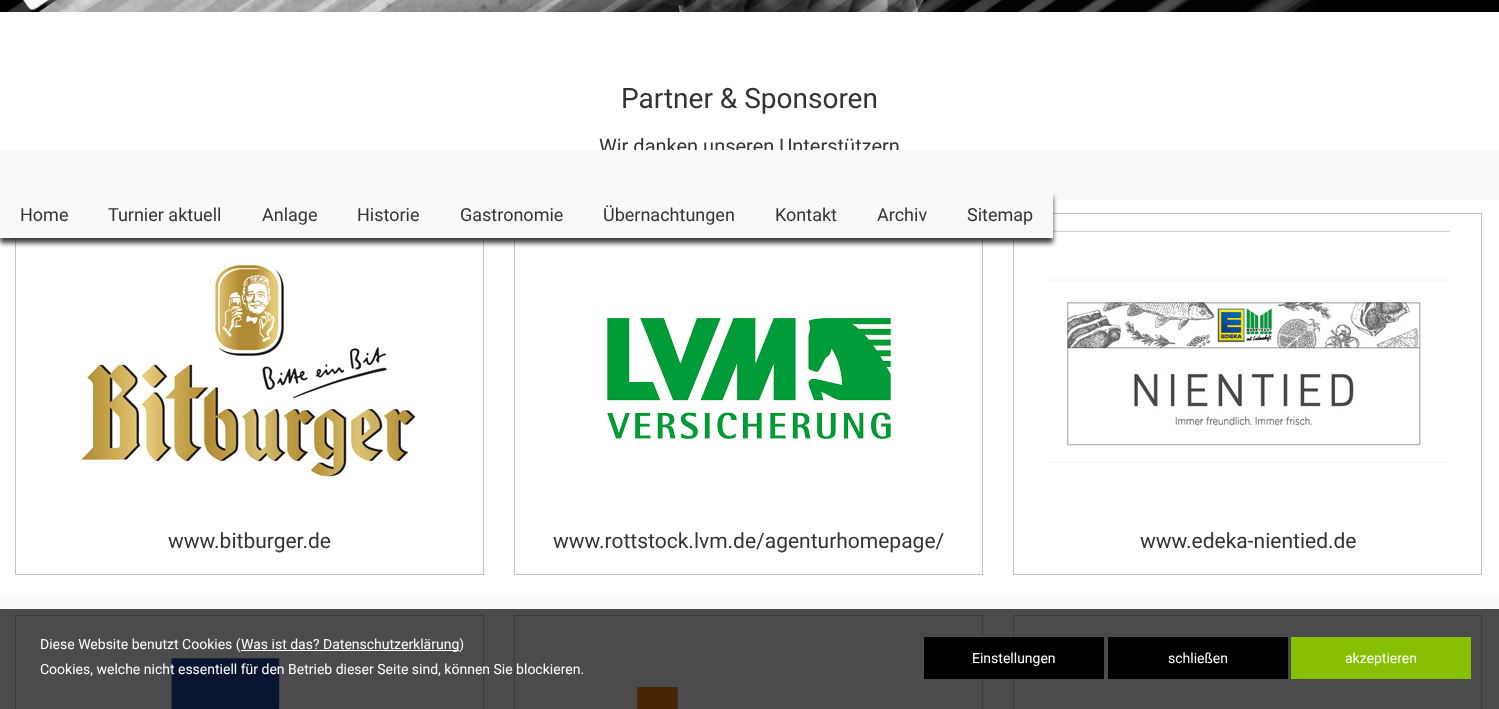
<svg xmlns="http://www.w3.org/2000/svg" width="1499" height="709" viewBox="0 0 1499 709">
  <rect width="100%" height="100%" fill="rgb(255,255,255)"/>
  <rect x="0" y="0" width="1499" height="12" fill="rgb(0,0,0)"/>
  <image x="6" y="0" width="1310" height="12" href="pic1.png"/>
  <text x="621" y="108" font-family="Roboto" font-size="28" fill="rgb(51,51,51)">Partner &amp; Sponsoren</text>
  <text x="599" y="153" font-family="Roboto" font-size="20" fill="rgb(51,51,51)">Wir danken unseren Unterstützern</text>
  <rect x="15.5" y="213.5" width="468" height="361" fill="none" stroke="rgb(194,194,194)"/>
  <image x="81" y="262" width="335" height="215" href="pic2.png"/>
  <text x="168" y="548" font-family="Roboto" font-size="21" fill="rgb(51,51,51)">www.bitburger.de</text>
  <rect x="514.5" y="213.5" width="468" height="361" fill="none" stroke="rgb(194,194,194)"/>
  <image x="607" y="317" width="284" height="126" href="pic3.png"/>
  <text x="553" y="548" font-family="Roboto" font-size="21" fill="rgb(51,51,51)">www.rottstock.lvm.de/agenturhomepage/</text>
  <rect x="1013.5" y="213.5" width="468" height="361" fill="none" stroke="rgb(194,194,194)"/>
  <image x="1046" y="229" width="404" height="234" href="pic4.png"/>
  <text x="1140" y="548" font-family="Roboto" font-size="21" fill="rgb(51,51,51)">www.edeka-nientied.de</text>
  <rect x="0" y="595" width="1499" height="14" fill="rgb(249,249,249)"/>
  <rect x="0" y="609" width="1499" height="100" fill="rgb(75,75,75)"/>
  <rect x="15.5" y="615.5" width="468" height="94" fill="none" stroke="rgb(58,58,58)"/>
  <image x="171" y="658" width="109" height="51" href="pic5.png"/>
  <rect x="514.5" y="615.5" width="468" height="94" fill="none" stroke="rgb(58,58,58)"/>
  <image x="637" y="687" width="41" height="22" href="pic6.png"/>
  <rect x="1013.5" y="615.5" width="468" height="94" fill="none" stroke="rgb(58,58,58)"/>
  <rect x="0" y="150" width="1499" height="50" fill="rgb(249,249,249)"/>
  <rect x="0" y="197" width="1053" height="46" fill="rgba(0,0,0,0.76)" filter="blur(2.5px)"/>
  <rect x="0" y="192" width="1053" height="46" fill="rgb(249,249,249)"/>
  <g font-family="Roboto" font-size="18" fill="rgb(51,51,51)">
    <text x="20" y="221">Home</text>
    <text x="108" y="221">Turnier aktuell</text>
    <text x="262" y="221">Anlage</text>
    <text x="357" y="221">Historie</text>
    <text x="460" y="221">Gastronomie</text>
    <text x="603" y="221">Übernachtungen</text>
    <text x="775" y="221">Kontakt</text>
    <text x="877" y="221">Archiv</text>
    <text x="967" y="221">Sitemap</text>
  </g>
  <text x="40" y="649" font-family="Roboto" font-size="14" fill="rgb(255,255,255)">Diese Website benutzt Cookies (</text>
  <rect x="241" y="650" width="218" height="1" fill="rgb(255,255,255)"/>
  <g font-family="Roboto" font-size="14" fill="rgb(255,255,255)">
    <text x="241" y="649">Was ist das? Datenschutzerklärung)</text>
    <text x="40" y="674">Cookies, welche nicht essentiell für den Betrieb dieser Seite sind, können Sie blockieren.</text>
  </g>
  <rect x="924" y="637" width="180" height="42" fill="rgb(0,0,0)"/>
  <text x="972" y="663" font-family="Roboto" font-size="14" fill="rgb(255,255,255)">Einstellungen</text>
  <rect x="1108" y="637" width="180" height="42" fill="rgb(0,0,0)"/>
  <text x="1168" y="663" font-family="Roboto" font-size="14" fill="rgb(255,255,255)">schließen</text>
  <rect x="1291" y="637" width="180" height="42" fill="rgb(135,191,1)"/>
  <text x="1345" y="663" font-family="Roboto" font-size="14" fill="rgb(255,255,255)">akzeptieren</text>
</svg>
